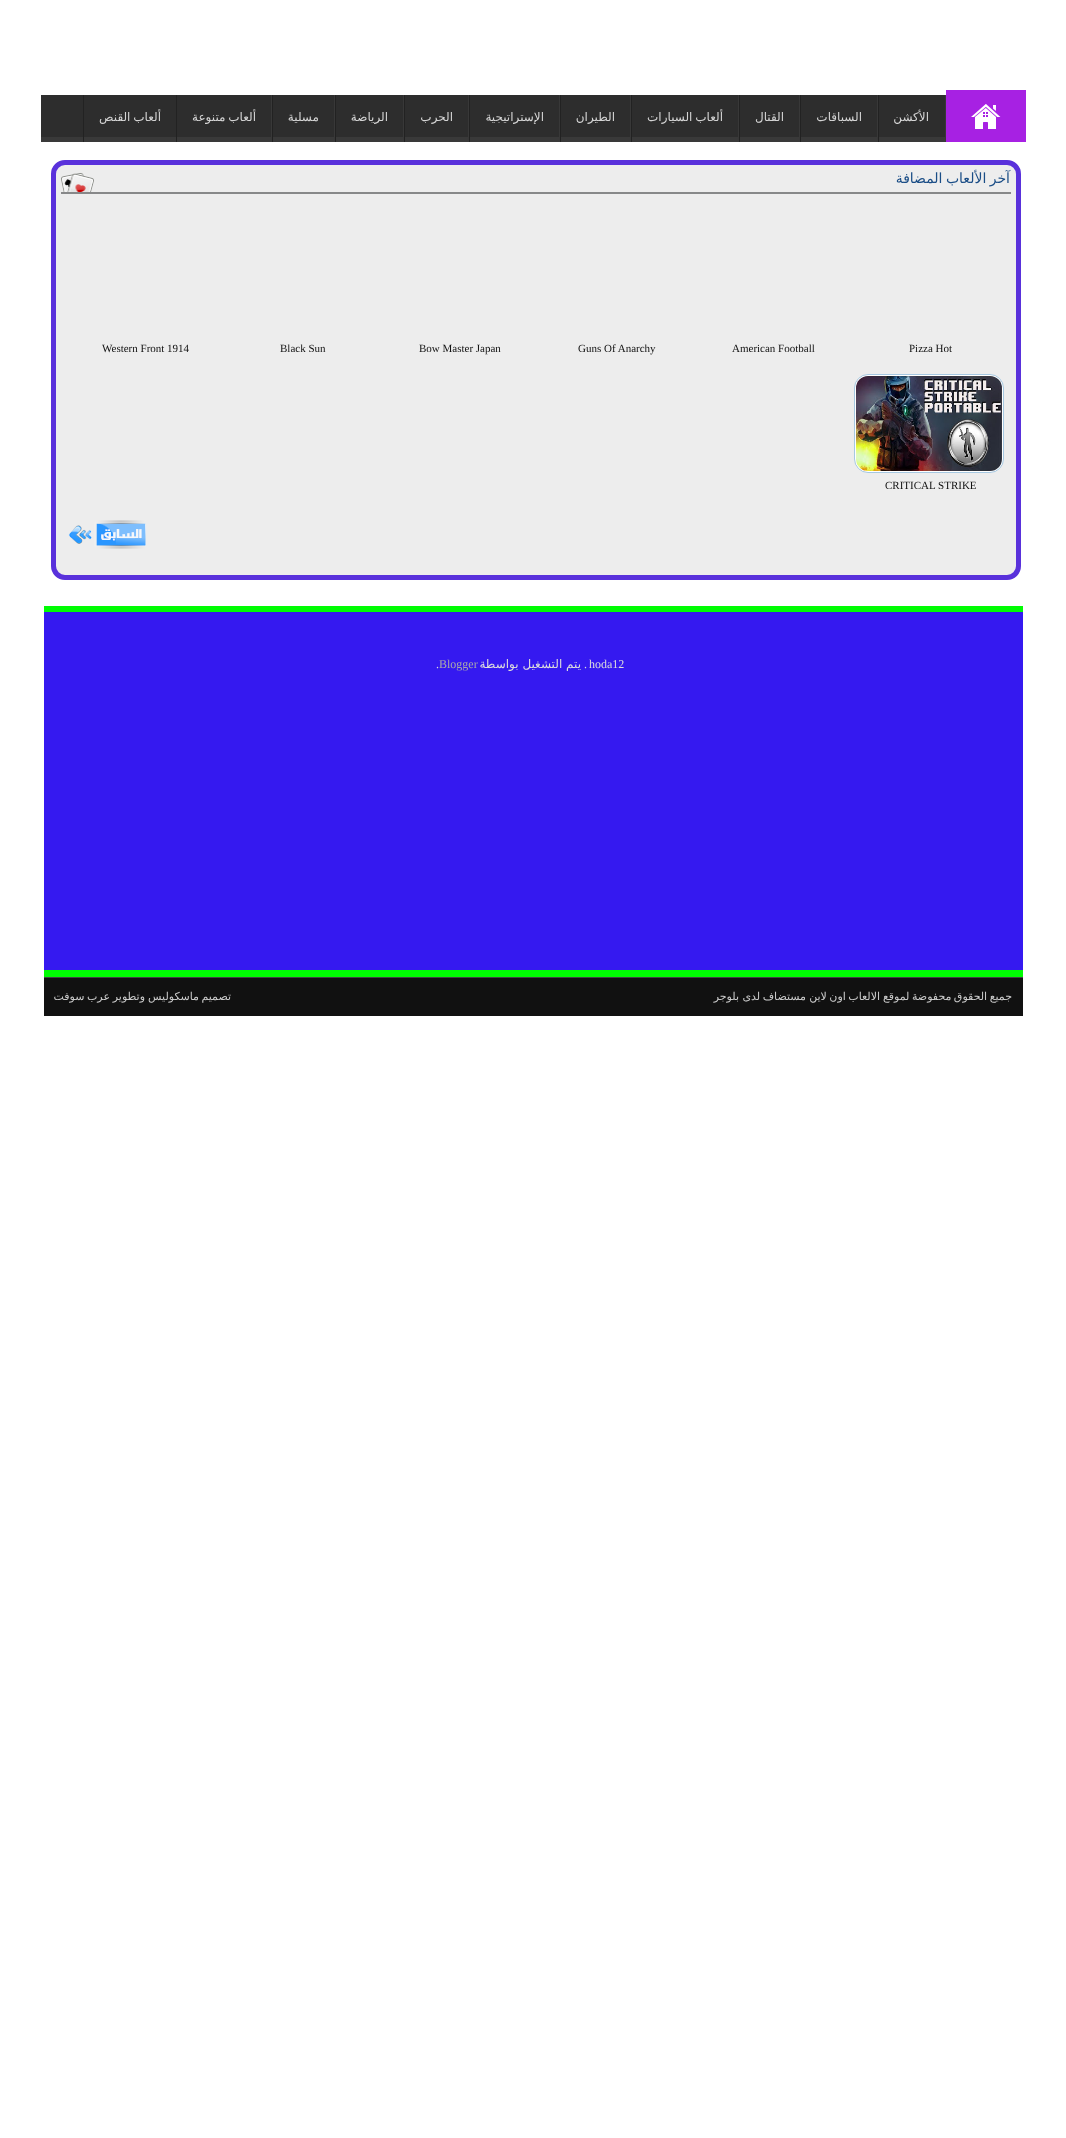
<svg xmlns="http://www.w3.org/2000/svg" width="1066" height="2138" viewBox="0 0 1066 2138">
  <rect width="100%" height="100%" fill="rgb(255,255,255)"/>
  <image x="41" y="95" width="905" height="47" href="pic1.png"/>
  <rect x="946" y="90" width="80" height="52" fill="rgb(167,33,227)"/>
  <image x="971" y="104" width="30" height="25" href="pic2.png"/>
  <rect x="878" y="95" width="1" height="47" fill="rgb(34,34,34)"/>
  <rect x="945" y="95" width="1" height="45" fill="rgb(56,56,56)"/>
  <text x="929" y="121" font-family="DejaVu Sans" font-size="12" direction="rtl" fill="rgb(213,213,213)">الأكشن</text>
  <rect x="800" y="95" width="1" height="47" fill="rgb(34,34,34)"/>
  <rect x="877" y="95" width="1" height="45" fill="rgb(56,56,56)"/>
  <text x="862" y="121" font-family="DejaVu Sans" font-size="12" direction="rtl" fill="rgb(213,213,213)">السباقات</text>
  <rect x="739" y="95" width="1" height="47" fill="rgb(34,34,34)"/>
  <rect x="799" y="95" width="1" height="45" fill="rgb(56,56,56)"/>
  <text x="784" y="121" font-family="DejaVu Sans" font-size="12" direction="rtl" fill="rgb(213,213,213)">القتال</text>
  <rect x="631" y="95" width="1" height="47" fill="rgb(34,34,34)"/>
  <rect x="738" y="95" width="1" height="45" fill="rgb(56,56,56)"/>
  <text x="723" y="121" word-spacing="-1" font-family="DejaVu Sans" font-size="12" direction="rtl" fill="rgb(213,213,213)">ألعاب السيارات</text>
  <rect x="560" y="95" width="1" height="47" fill="rgb(34,34,34)"/>
  <rect x="630" y="95" width="1" height="45" fill="rgb(56,56,56)"/>
  <text x="615" y="121" font-family="DejaVu Sans" font-size="12" direction="rtl" fill="rgb(213,213,213)">الطيران</text>
  <rect x="469" y="95" width="1" height="47" fill="rgb(34,34,34)"/>
  <rect x="559" y="95" width="1" height="45" fill="rgb(56,56,56)"/>
  <text x="544" y="121" font-family="DejaVu Sans" font-size="12" direction="rtl" fill="rgb(213,213,213)">الإستراتيجية</text>
  <rect x="404" y="95" width="1" height="47" fill="rgb(34,34,34)"/>
  <rect x="468" y="95" width="1" height="45" fill="rgb(56,56,56)"/>
  <text x="453" y="121" font-family="DejaVu Sans" font-size="12" direction="rtl" fill="rgb(213,213,213)">الحرب</text>
  <rect x="335" y="95" width="1" height="47" fill="rgb(34,34,34)"/>
  <rect x="403" y="95" width="1" height="45" fill="rgb(56,56,56)"/>
  <text x="388" y="121" font-family="DejaVu Sans" font-size="12" direction="rtl" fill="rgb(213,213,213)">الرياضة</text>
  <rect x="272" y="95" width="1" height="47" fill="rgb(34,34,34)"/>
  <rect x="334" y="95" width="1" height="45" fill="rgb(56,56,56)"/>
  <text x="319" y="121" font-family="DejaVu Sans" font-size="12" direction="rtl" fill="rgb(213,213,213)">مسلية</text>
  <rect x="176" y="95" width="1" height="47" fill="rgb(34,34,34)"/>
  <rect x="271" y="95" width="1" height="45" fill="rgb(56,56,56)"/>
  <text x="256" y="121" word-spacing="-1" font-family="DejaVu Sans" font-size="12" direction="rtl" fill="rgb(213,213,213)">ألعاب متنوعة</text>
  <rect x="83" y="95" width="1" height="47" fill="rgb(34,34,34)"/>
  <text x="161" y="121" word-spacing="-1" font-family="DejaVu Sans" font-size="12" direction="rtl" fill="rgb(213,213,213)">ألعاب القنص</text>
  <rect x="53.5" y="162.5" width="965" height="415" rx="11.5" fill="rgb(237,237,237)" stroke="rgb(89,49,219)" stroke-width="5"/>
  <image x="61" y="173" width="33" height="19" href="pic3.png"/>
  <rect x="61" y="192" width="950" height="2" fill="rgb(135,136,137)"/>
  <text x="1010" y="183" word-spacing="-1" font-family="DejaVu Sans" font-size="14" direction="rtl" fill="rgb(26,77,134)">آخر الألعاب المضافة</text>
  <g font-family="Liberation Serif" font-size="11" fill="rgb(17,17,17)">
    <text x="909" y="352">Pizza Hot</text>
    <text x="732" y="352">American Football</text>
    <text x="578" y="352">Guns Of Anarchy</text>
    <text x="419" y="352">Bow Master Japan</text>
    <text x="280" y="352">Black Sun</text>
    <text x="102" y="352">Western Front 1914</text>
  </g>
  <rect x="854.5" y="374.5" width="149" height="98" rx="13.5" fill="rgb(255,255,255)" stroke="rgb(166,200,225)"/>
  <image x="856" y="376" width="146" height="95" href="pic4.png"/>
  <text x="885" y="489" font-family="Liberation Serif" font-size="11" fill="rgb(17,17,17)">CRITICAL STRIKE</text>
  <image x="68" y="520" width="78" height="29" href="pic5.png"/>
  <rect x="44" y="612" width="979" height="358" fill="rgb(53,25,240)"/>
  <rect x="44" y="606" width="979" height="6" fill="rgb(0,252,3)"/>
  <rect x="44" y="970" width="979" height="7" fill="rgb(0,252,3)"/>
  <text x="589" y="668" font-family="Liberation Serif" font-size="12" fill="rgb(221,221,221)">hoda12</text>
  <text x="587" y="668" font-family="Liberation Serif" font-size="12" direction="rtl" fill="rgb(221,221,221)">.</text>
  <text x="581" y="668" font-family="DejaVu Sans" font-size="12" direction="rtl" fill="rgb(221,221,221)">يتم التشغيل بواسطة</text>
  <text x="439" y="668" font-family="Liberation Serif" font-size="12" fill="rgb(170,170,170)">Blogger</text>
  <text x="436" y="668" font-family="Liberation Serif" font-size="12" fill="rgb(221,221,221)">.</text>
  <rect x="44" y="978" width="979" height="38" fill="rgb(17,17,17)"/>
  <rect x="44" y="977" width="979" height="1" fill="rgb(68,68,68)"/>
  <g font-family="DejaVu Sans" font-size="11" direction="rtl" fill="rgb(204,204,204)">
    <text x="1012" y="1000" word-spacing="-1">جميع الحقوق محفوضة لموقع</text>
    <text x="880" y="1000" word-spacing="-1">الالعاب اون لاين</text>
    <text x="806" y="1000" word-spacing="-1">مستضاف لدى</text>
    <text x="739" y="1000">بلوجر</text>
    <text x="231" y="1000">تصميم</text>
    <text x="199" y="1000">ماسكوليس</text>
    <text x="145" y="1000">وتطوير</text>
    <text x="110" y="1000" word-spacing="-1">عرب سوفت</text>
  </g>
</svg>
